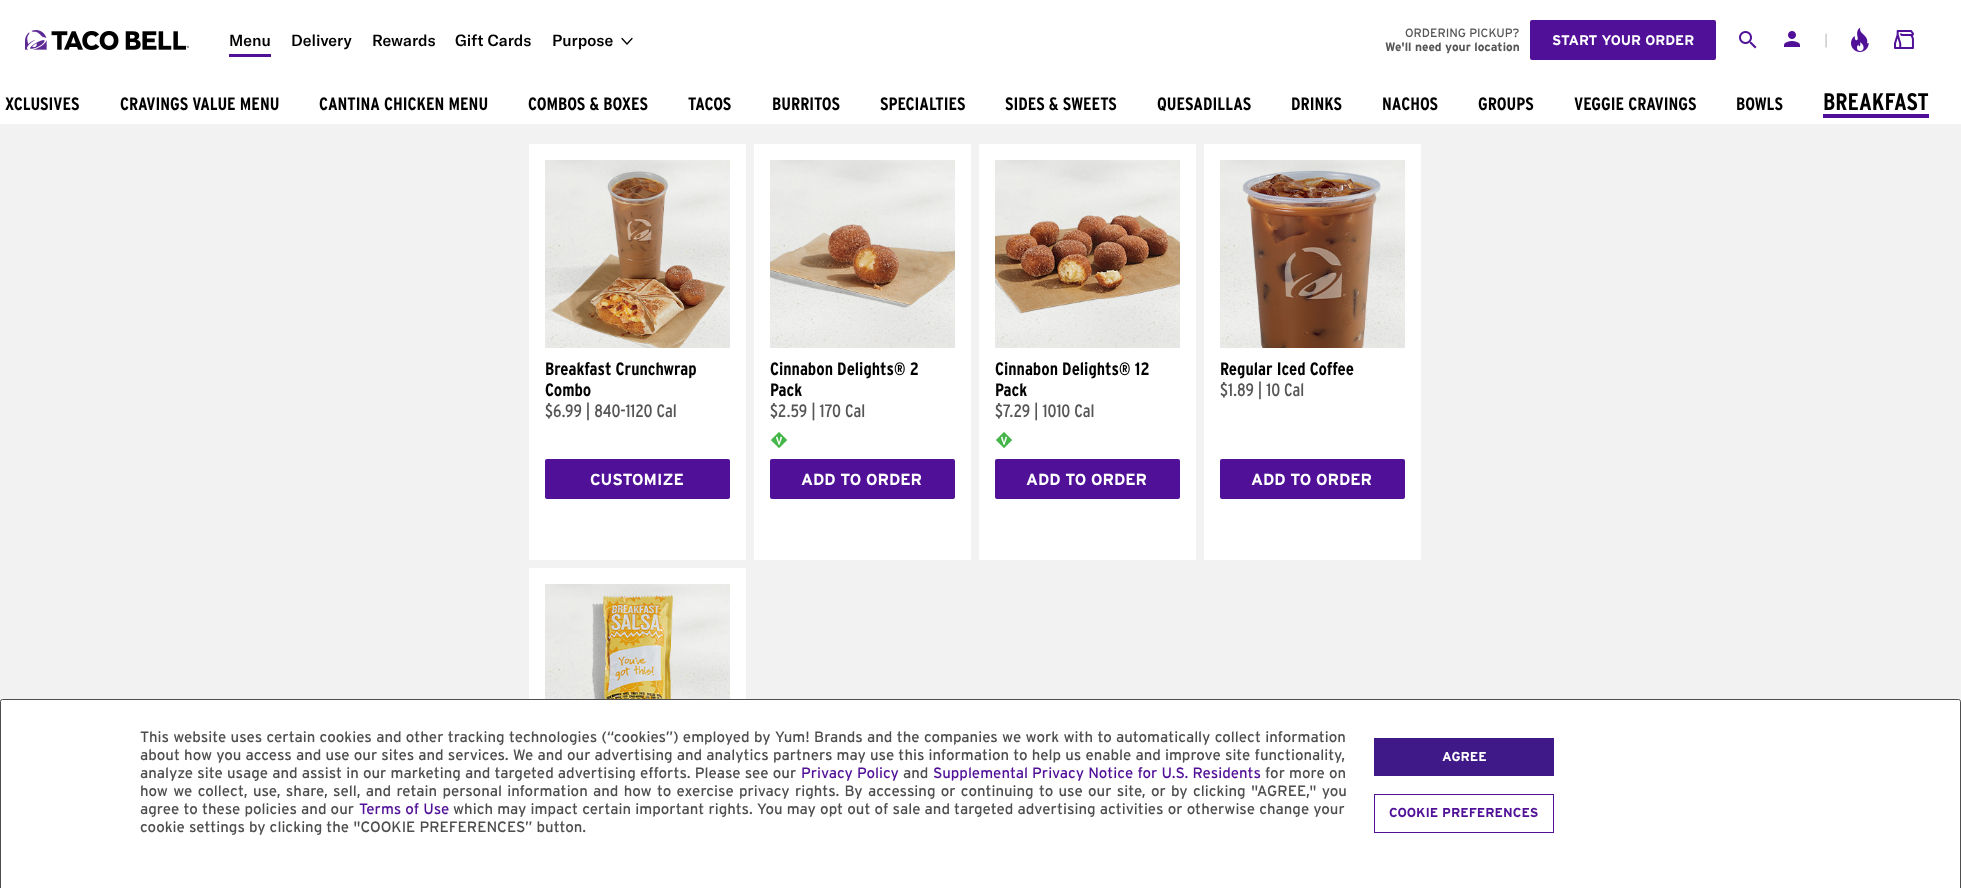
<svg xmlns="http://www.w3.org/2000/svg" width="1961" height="888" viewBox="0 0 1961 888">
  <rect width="100%" height="100%" fill="rgb(255,255,255)"/>
  <image x="25" y="30" width="164" height="20" href="pic1.png"/>
  <text x="229" y="46" font-family="GT America" font-size="16" font-weight="500" fill="rgb(0,0,0)">Menu</text>
  <rect x="229" y="54" width="42" height="3" fill="rgb(80,16,152)"/>
  <g font-family="GT America" font-size="16" font-weight="500" fill="rgb(0,0,0)">
    <text x="291" y="46">Delivery</text>
    <text x="372" y="46">Rewards</text>
    <text x="455" y="46">Gift Cards</text>
    <text x="552" y="46">Purpose</text>
  </g>
  <path d="M622 38.5L627 44L632 38.5" fill="none" stroke="rgb(0,0,0)" stroke-width="1.3" stroke-linecap="round"/>
  <text x="1405" y="37" font-family="'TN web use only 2'" font-size="12" fill="rgb(86,86,86)">ORDERING PICKUP?</text>
  <text x="1385" y="51" font-family="'TN web use only 2'" font-size="12" font-weight="bold" fill="rgb(86,86,86)">We'll need your location</text>
  <rect x="1530" y="20" width="186" height="40" rx="2" fill="rgb(80,16,152)"/>
  <text x="1552" y="45" font-family="'TN web use only 2'" font-size="14" font-weight="bold" fill="rgb(255,255,255)">START YOUR ORDER</text>
  <image x="1739" y="31" width="18" height="18" href="pic2.png"/>
  <image x="1784" y="31" width="16" height="16" href="pic3.png"/>
  <text x="1824" y="45" font-family="'TN web use only 2'" font-size="14" fill="rgb(198,198,198)">|</text>
  <image x="1851" y="28" width="18" height="24" href="pic4.png"/>
  <image x="1894" y="30" width="20" height="19" href="pic5.png"/>
  <g font-family="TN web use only" font-size="18" font-weight="bold" fill="rgb(0,0,0)">
    <text x="5" y="110">XCLUSIVES</text>
    <text x="120" y="110">CRAVINGS VALUE MENU</text>
    <text x="319" y="110">CANTINA CHICKEN MENU</text>
    <text x="528" y="110">COMBOS &amp; BOXES</text>
    <text x="688" y="110">TACOS</text>
    <text x="772" y="110">BURRITOS</text>
    <text x="880" y="110">SPECIALTIES</text>
    <text x="1005" y="110">SIDES &amp; SWEETS</text>
    <text x="1157" y="110">QUESADILLAS</text>
    <text x="1291" y="110">DRINKS</text>
    <text x="1382" y="110">NACHOS</text>
    <text x="1478" y="110">GROUPS</text>
    <text x="1574" y="110">VEGGIE CRAVINGS</text>
    <text x="1736" y="110">BOWLS</text>
  </g>
  <rect x="1823" y="114" width="106" height="4" fill="rgb(80,16,152)"/>
  <text x="1823" y="110" font-family="TN web use only" font-size="24" font-weight="bold" fill="rgb(0,0,0)">BREAKFAST</text>
  <rect x="0" y="124" width="1961" height="578" fill="rgb(242,242,242)"/>
  <rect x="529" y="144" width="217" height="416" fill="rgb(255,255,255)"/>
  <image x="545" y="160" width="185" height="188" href="pic6.png"/>
  <g font-family="TN web use only" font-size="18" font-weight="bold" fill="rgb(0,0,0)">
    <text>
      <tspan x="545" y="375">Breakfast Crunchwrap</tspan>
      <tspan x="545" y="396">Combo</tspan>
    </text>
  </g>
  <text x="545" y="417" font-family="TN web use only" font-size="18" fill="rgb(86,86,86)">$6.99 | 840-1120 Cal</text>
  <rect x="545" y="459" width="185" height="40" rx="2" fill="rgb(80,16,152)"/>
  <text x="590" y="485" font-family="'TN web use only 2'" font-size="16" font-weight="bold" fill="rgb(255,255,255)">CUSTOMIZE</text>
  <rect x="754" y="144" width="217" height="416" fill="rgb(255,255,255)"/>
  <image x="770" y="160" width="185" height="188" href="pic7.png"/>
  <g font-family="TN web use only" font-size="18" font-weight="bold" fill="rgb(0,0,0)">
    <text>
      <tspan x="770" y="375">Cinnabon Delights® 2</tspan>
      <tspan x="770" y="396">Pack</tspan>
    </text>
  </g>
  <text x="770" y="417" font-family="TN web use only" font-size="18" fill="rgb(86,86,86)">$2.59 | 170 Cal</text>
  <image x="770" y="432" width="18" height="16" href="pic8.png"/>
  <rect x="770" y="459" width="185" height="40" rx="2" fill="rgb(80,16,152)"/>
  <text x="801" y="485" font-family="'TN web use only 2'" font-size="16" font-weight="bold" fill="rgb(255,255,255)">ADD TO ORDER</text>
  <rect x="979" y="144" width="217" height="416" fill="rgb(255,255,255)"/>
  <image x="995" y="160" width="185" height="188" href="pic9.png"/>
  <g font-family="TN web use only" font-size="18" font-weight="bold" fill="rgb(0,0,0)">
    <text>
      <tspan x="995" y="375">Cinnabon Delights® 12</tspan>
      <tspan x="995" y="396">Pack</tspan>
    </text>
  </g>
  <text x="995" y="417" font-family="TN web use only" font-size="18" fill="rgb(86,86,86)">$7.29 | 1010 Cal</text>
  <image x="995" y="432" width="18" height="16" href="pic10.png"/>
  <rect x="995" y="459" width="185" height="40" rx="2" fill="rgb(80,16,152)"/>
  <text x="1026" y="485" font-family="'TN web use only 2'" font-size="16" font-weight="bold" fill="rgb(255,255,255)">ADD TO ORDER</text>
  <rect x="1204" y="144" width="217" height="416" fill="rgb(255,255,255)"/>
  <image x="1220" y="160" width="185" height="188" href="pic11.png"/>
  <text x="1220" y="375" font-family="TN web use only" font-size="18" font-weight="bold" fill="rgb(0,0,0)">Regular Iced Coffee</text>
  <text x="1220" y="396" font-family="TN web use only" font-size="18" fill="rgb(86,86,86)">$1.89 | 10 Cal</text>
  <rect x="1220" y="459" width="185" height="40" rx="2" fill="rgb(80,16,152)"/>
  <text x="1251" y="485" font-family="'TN web use only 2'" font-size="16" font-weight="bold" fill="rgb(255,255,255)">ADD TO ORDER</text>
  <rect x="529" y="568" width="217" height="131" fill="rgb(255,255,255)"/>
  <image x="545" y="584" width="185" height="115" href="pic12.png"/>
  <rect x="0.5" y="699.5" width="1960" height="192" rx="2" fill="rgb(255,255,255)" stroke="rgb(78,78,78)"/>
  <g font-family="'TN web use only 2'" font-size="15" fill="rgb(78,78,78)">
    <text>
      <tspan x="140" y="742" word-spacing="0.25">This website uses certain cookies and other tracking technologies (“cookies”) employed by Yum! Brands and the companies we work with to automatically collect information</tspan>
      <tspan x="140" y="760" word-spacing="0.1">about how you access and use our sites and services. We and our advertising and analytics partners may use this information to help us enable and improve site functionality,</tspan>
      <tspan x="140" y="778" word-spacing="0.1">analyze site usage and assist in our marketing and targeted advertising efforts. Please see our</tspan>
    </text>
  </g>
  <text x="801" y="778" font-family="'TN web use only 2'" font-size="15" fill="rgb(80,16,152)">Privacy Policy</text>
  <text x="903" y="778" font-family="'TN web use only 2'" font-size="15" fill="rgb(78,78,78)">and</text>
  <text x="933" y="778" word-spacing="0.1" font-family="'TN web use only 2'" font-size="15" fill="rgb(80,16,152)">Supplemental Privacy Notice for U.S. Residents</text>
  <g font-family="'TN web use only 2'" font-size="15" fill="rgb(78,78,78)">
    <text x="1265" y="778" word-spacing="0.1">for more on</text>
    <text>
      <tspan x="140" y="796" word-spacing="1.25">how we collect, use, share, sell, and retain personal information and how to exercise privacy rights. By accessing or continuing to use our site, or by clicking "AGREE," you</tspan>
      <tspan x="140" y="814" word-spacing="0.1">agree to these policies and our</tspan>
    </text>
  </g>
  <text x="359" y="814" font-family="'TN web use only 2'" font-size="15" fill="rgb(80,16,152)">Terms of Use</text>
  <g font-family="'TN web use only 2'" font-size="15" fill="rgb(78,78,78)">
    <text x="453" y="814" word-spacing="0.1">which may impact certain important rights. You may opt out of sale and targeted advertising activities or otherwise change your</text>
    <text x="140" y="832">cookie settings by clicking the "COOKIE PREFERENCES” button.</text>
  </g>
  <rect x="1374" y="738" width="180" height="38" fill="rgb(64,25,137)"/>
  <text x="1442" y="761" font-family="'TN web use only 2'" font-size="13" font-weight="bold" fill="rgb(255,255,255)">AGREE</text>
  <rect x="1374.5" y="794.5" width="179" height="38" fill="none" stroke="rgb(80,16,152)"/>
  <text x="1389" y="817" font-family="'TN web use only 2'" font-size="13" font-weight="bold" fill="rgb(80,16,152)">COOKIE PREFERENCES</text>
</svg>
